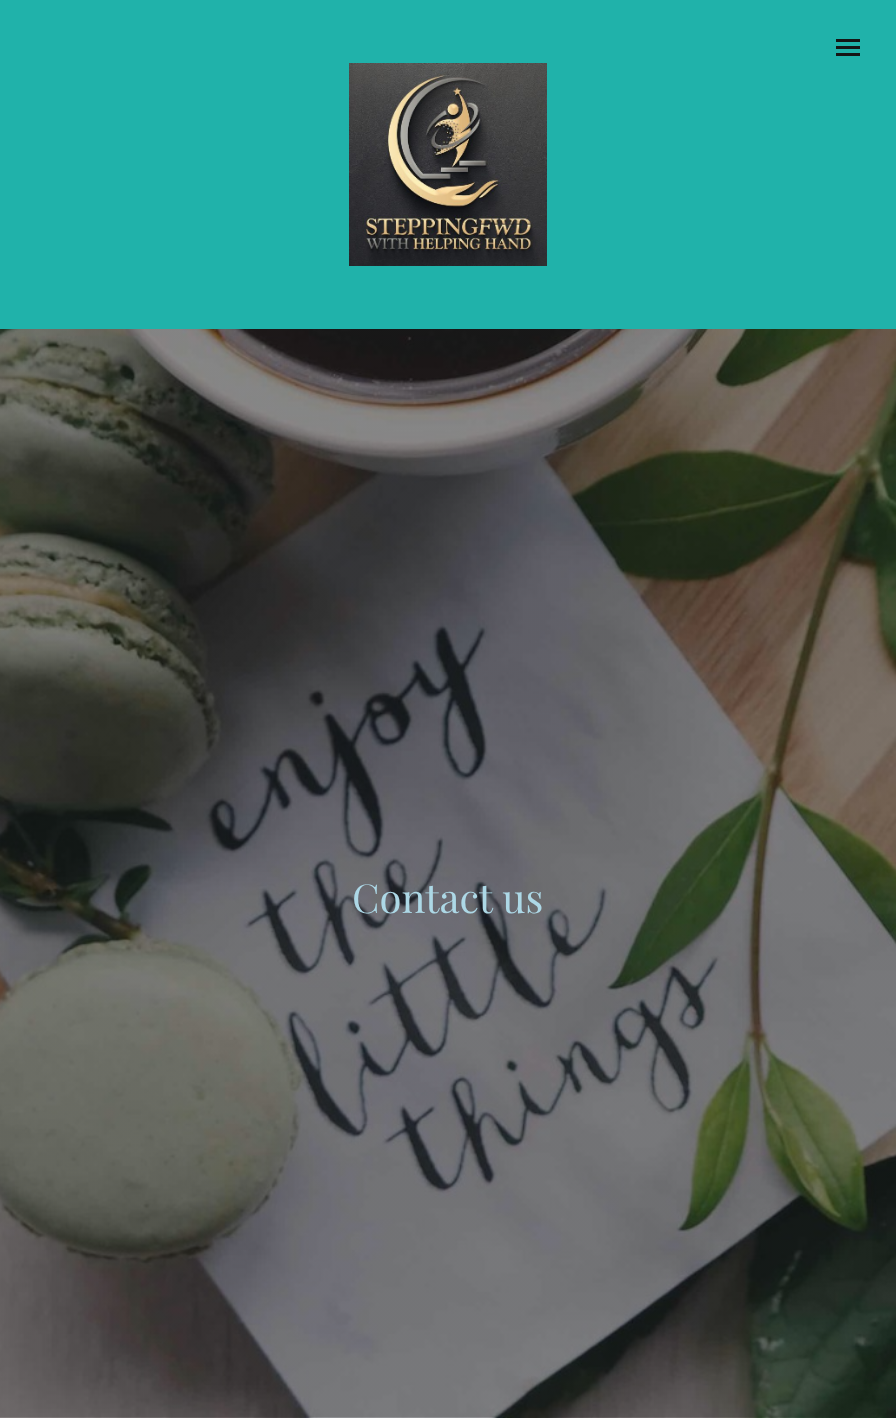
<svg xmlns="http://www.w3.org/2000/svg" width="896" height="1418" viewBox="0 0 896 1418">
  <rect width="100%" height="100%" fill="rgb(32,178,170)"/>
  <rect x="836" y="39" width="24" height="3" fill="rgb(21,21,21)"/>
  <rect x="836" y="46" width="24" height="3" fill="rgb(21,21,21)"/>
  <rect x="836" y="53" width="24" height="3" fill="rgb(21,21,21)"/>
  <image x="349" y="63" width="198" height="203" href="pic1.png"/>
  <image x="0" y="329" width="896" height="1089" href="pic2.png"/>
  <text x="352" y="913" font-family="Playfair Display" font-size="40" fill="rgb(173,216,230)">Contact us</text>
</svg>
